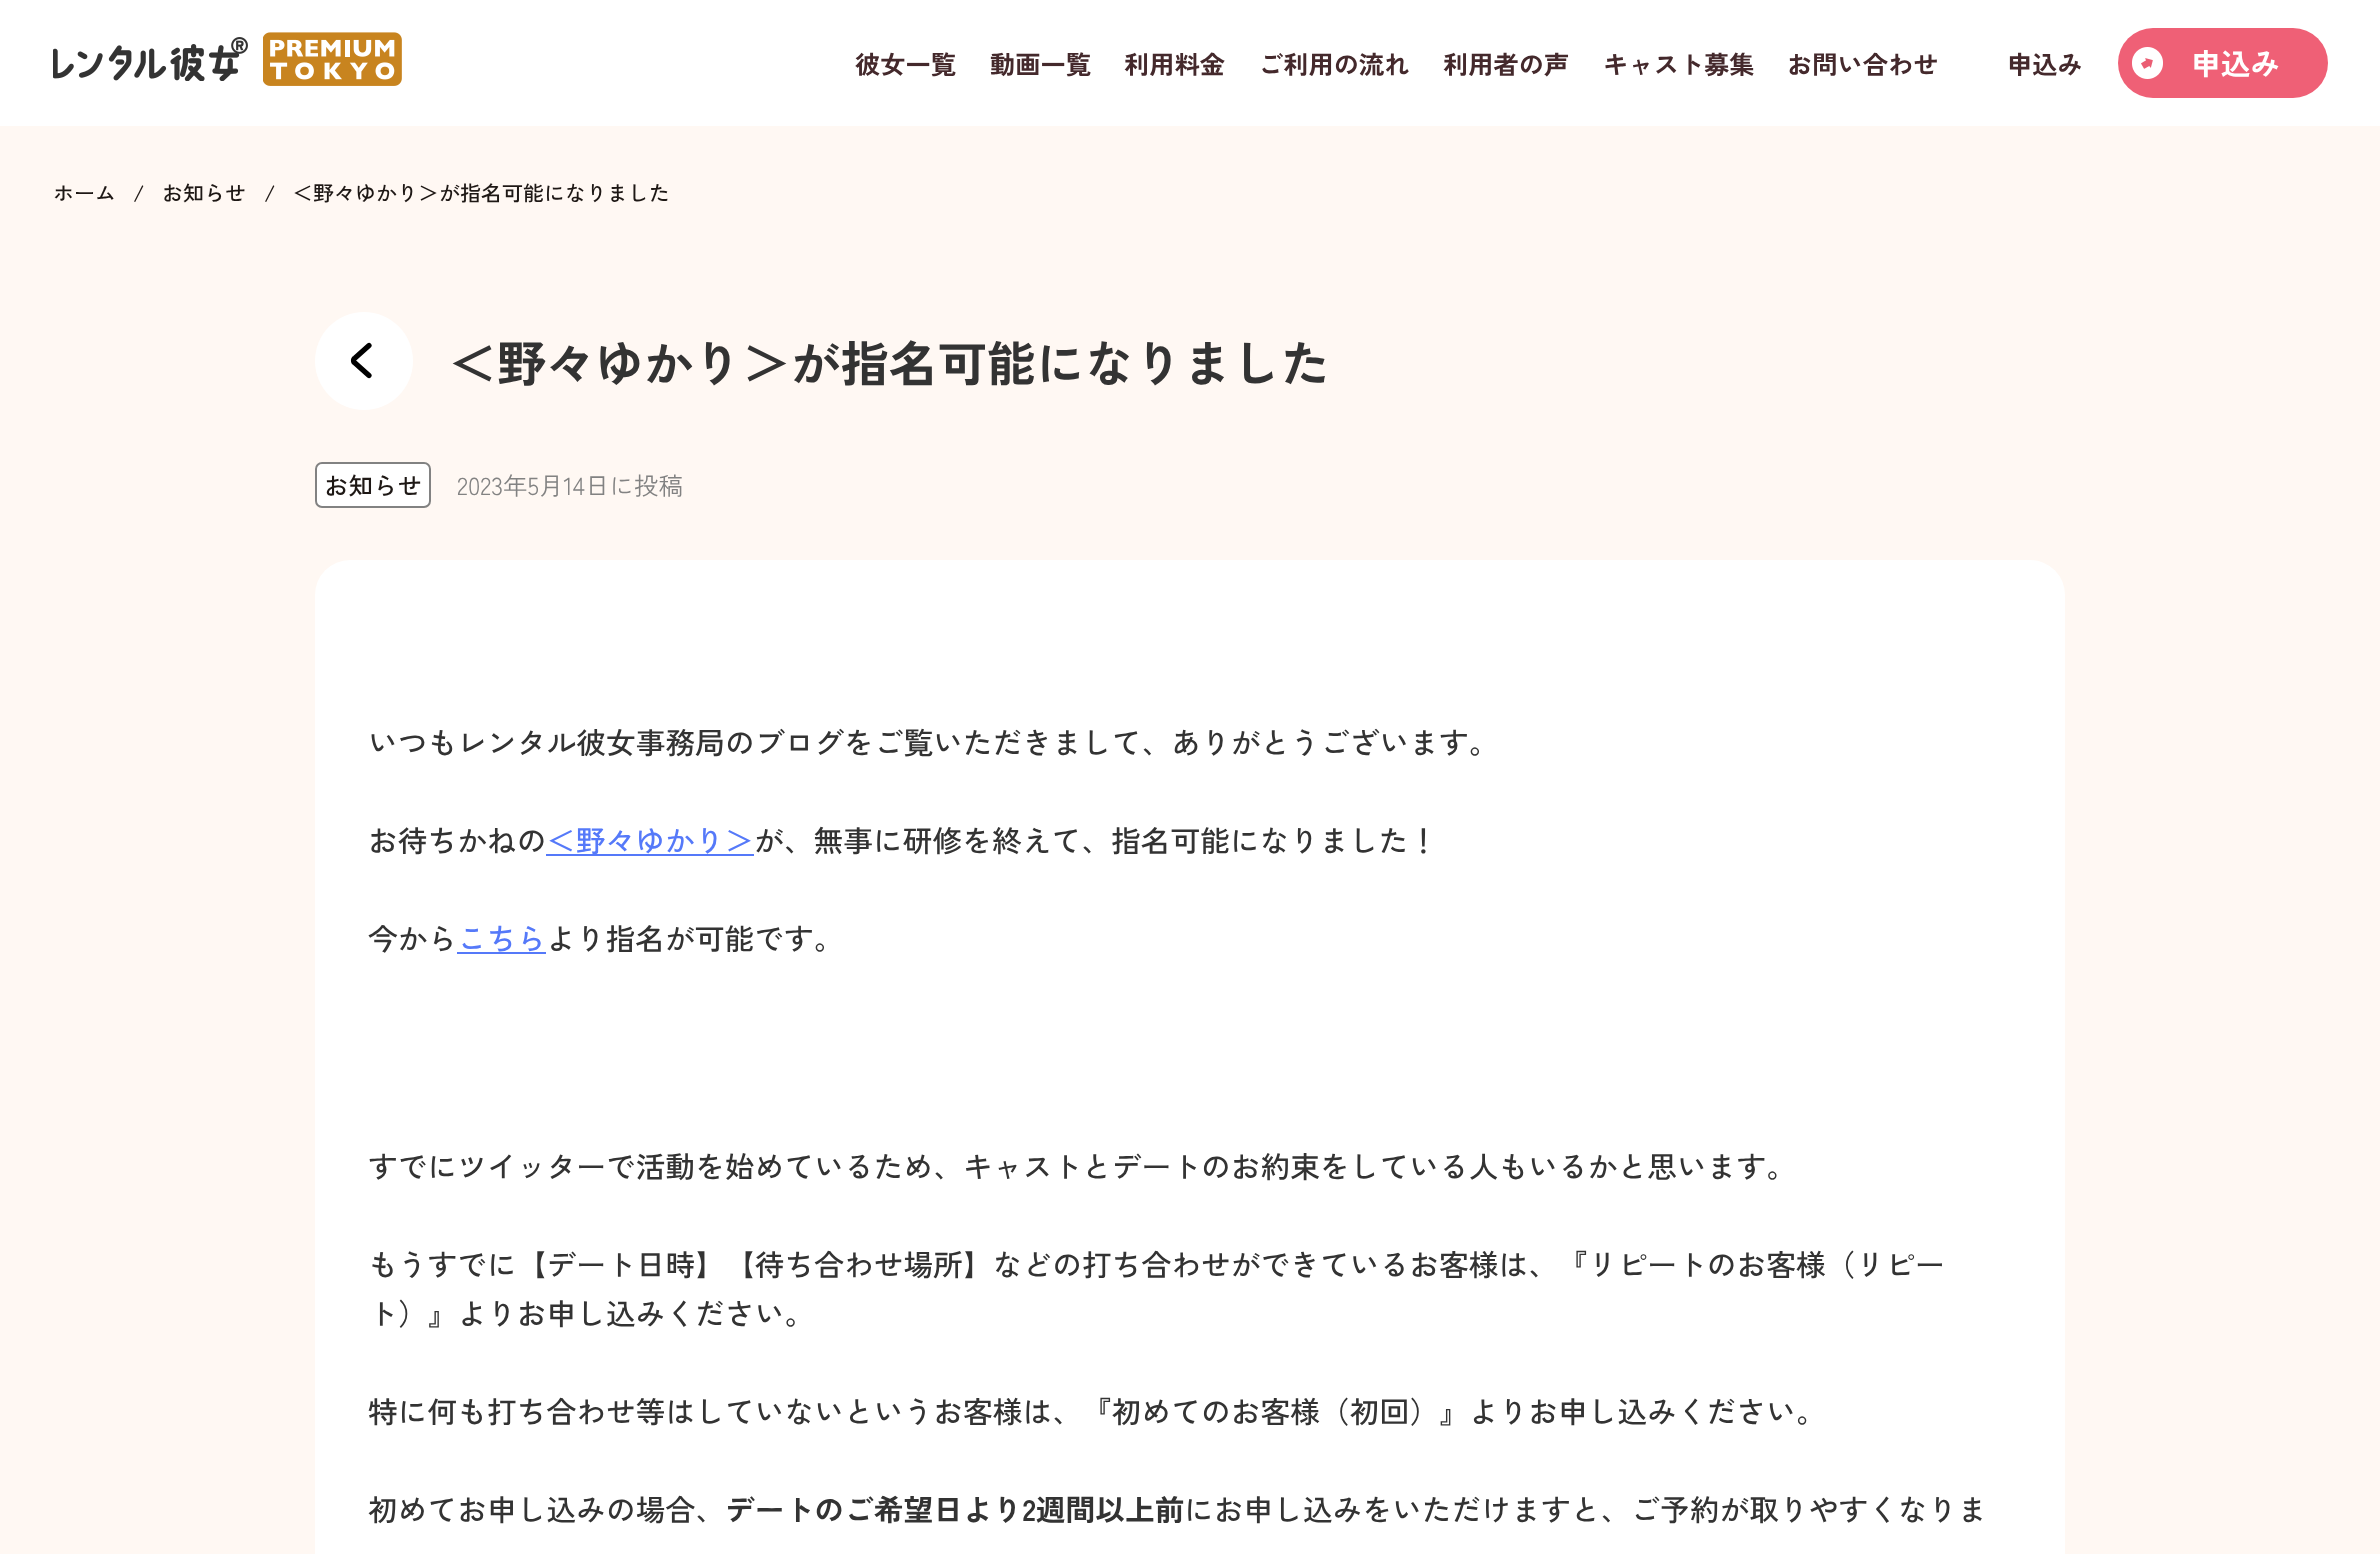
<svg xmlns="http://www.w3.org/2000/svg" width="2380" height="1554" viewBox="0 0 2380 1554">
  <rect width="100%" height="100%" fill="rgb(255,255,255)"/>
  <image x="53" y="37" width="195" height="44" href="pic1.png"/>
  <image x="263" y="32" width="139" height="54" href="pic2.png"/>
  <g font-family="Zen Kaku Gothic New" font-size="25.25" font-weight="bold" fill="rgb(68,41,44)">
    <text x="855" y="74">彼女一覧</text>
    <text x="990" y="74">動画一覧</text>
    <text x="1124" y="74">利用料金</text>
    <text x="1258" y="74">ご利用の流れ</text>
    <text x="1443" y="74">利用者の声</text>
    <text x="1603" y="74">キャスト募集</text>
    <text x="1787" y="74">お問い合わせ</text>
    <text x="2007" y="74">申込み</text>
  </g>
  <rect x="2118" y="28" width="210" height="70" rx="35" fill="rgb(239,96,118)"/>
  <image x="2132" y="47" width="31" height="32" href="pic3.png"/>
  <text x="2191" y="75" font-family="Zen Kaku Gothic New" font-size="29.75" font-weight="bold" fill="rgb(255,255,255)">申込み</text>
  <rect x="0" y="126" width="2380" height="1428" fill="rgb(255,248,243)"/>
  <g font-family="Zen Kaku Gothic New" font-size="21" font-weight="500" fill="rgb(30,24,21)">
    <text x="53" y="201">ホーム</text>
    <text x="133" y="201">/</text>
    <text x="162" y="201">お知らせ</text>
    <text x="264" y="201">/</text>
    <text x="292" y="201">＜野々ゆかり＞が指名可能になりました</text>
  </g>
  <circle cx="364" cy="361" r="49" fill="rgb(255,255,255)"/>
  <path d="M369 345.5L355 358C353 359 353 362 355 363L369 375.5" fill="none" stroke="rgb(0,0,0)" stroke-width="5.2" stroke-linecap="round"/>
  <text x="448" y="382" font-family="Zen Kaku Gothic New" font-size="49" font-weight="bold" fill="rgb(51,51,51)">＜野々ゆかり＞が指名可能になりました</text>
  <rect x="316" y="463" width="114" height="44" rx="6" fill="rgb(255,255,255)" stroke="rgb(130,130,130)" stroke-width="2"/>
  <text x="324" y="495" font-family="Zen Kaku Gothic New" font-size="24.5" font-weight="500" fill="rgb(30,24,21)">お知らせ</text>
  <text x="457" y="495" font-family="Zen Kaku Gothic New" font-size="24.5" fill="rgb(130,130,130)">2023年5月14日に投稿</text>
  <rect x="315" y="560" width="1750" height="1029" rx="35" fill="rgb(255,255,255)"/>
  <g font-family="Zen Kaku Gothic New" font-size="29.75" font-weight="500" fill="rgb(51,51,51)">
    <text x="368" y="754">いつもレンタル彼女事務局のブログをご覧いただきまして、ありがとうございます。</text>
    <text x="368" y="852">お待ちかねの</text>
  </g>
  <rect x="546" y="854" width="208" height="2" fill="rgb(85,121,249)"/>
  <text x="546" y="852" font-family="Zen Kaku Gothic New" font-size="29.75" font-weight="500" fill="rgb(85,121,249)">＜野々ゆかり＞</text>
  <g font-family="Zen Kaku Gothic New" font-size="29.75" font-weight="500" fill="rgb(51,51,51)">
    <text x="754" y="852">が、無事に研修を終えて、指名可能になりました！</text>
    <text x="368" y="950">今から</text>
  </g>
  <text x="457" y="950" font-family="Zen Kaku Gothic New" font-size="29.75" font-weight="500" fill="rgb(85,121,249)">こちら</text>
  <rect x="457" y="952" width="89" height="2" fill="rgb(85,121,249)"/>
  <g font-family="Zen Kaku Gothic New" font-size="29.75" font-weight="500" fill="rgb(51,51,51)">
    <text x="546" y="950">より指名が可能です。</text>
    <text x="368" y="1178">すでにツイッターで活動を始めているため、キャストとデートのお約束をしている人もいるかと思います。</text>
    <text>
      <tspan x="368" y="1276">もうすでに【デート日時】【待ち合わせ場所】などの打ち合わせができているお客様は、『リピートのお客様（リピー</tspan>
      <tspan x="368" y="1325">ト）』よりお申し込みください。</tspan>
    </text>
    <text x="368" y="1423">特に何も打ち合わせ等はしていないというお客様は、『初めてのお客様（初回）』よりお申し込みください。</text>
    <text x="368" y="1521">初めてお申し込みの場合、</text>
  </g>
  <text x="725" y="1521" font-family="Zen Kaku Gothic New" font-size="29.75" font-weight="bold" fill="rgb(51,51,51)">デートのご希望日より2週間以上前</text>
  <text x="1184" y="1521" font-family="Zen Kaku Gothic New" font-size="29.75" font-weight="500" fill="rgb(51,51,51)">にお申し込みをいただけますと、ご予約が取りやすくなりま</text>
</svg>
